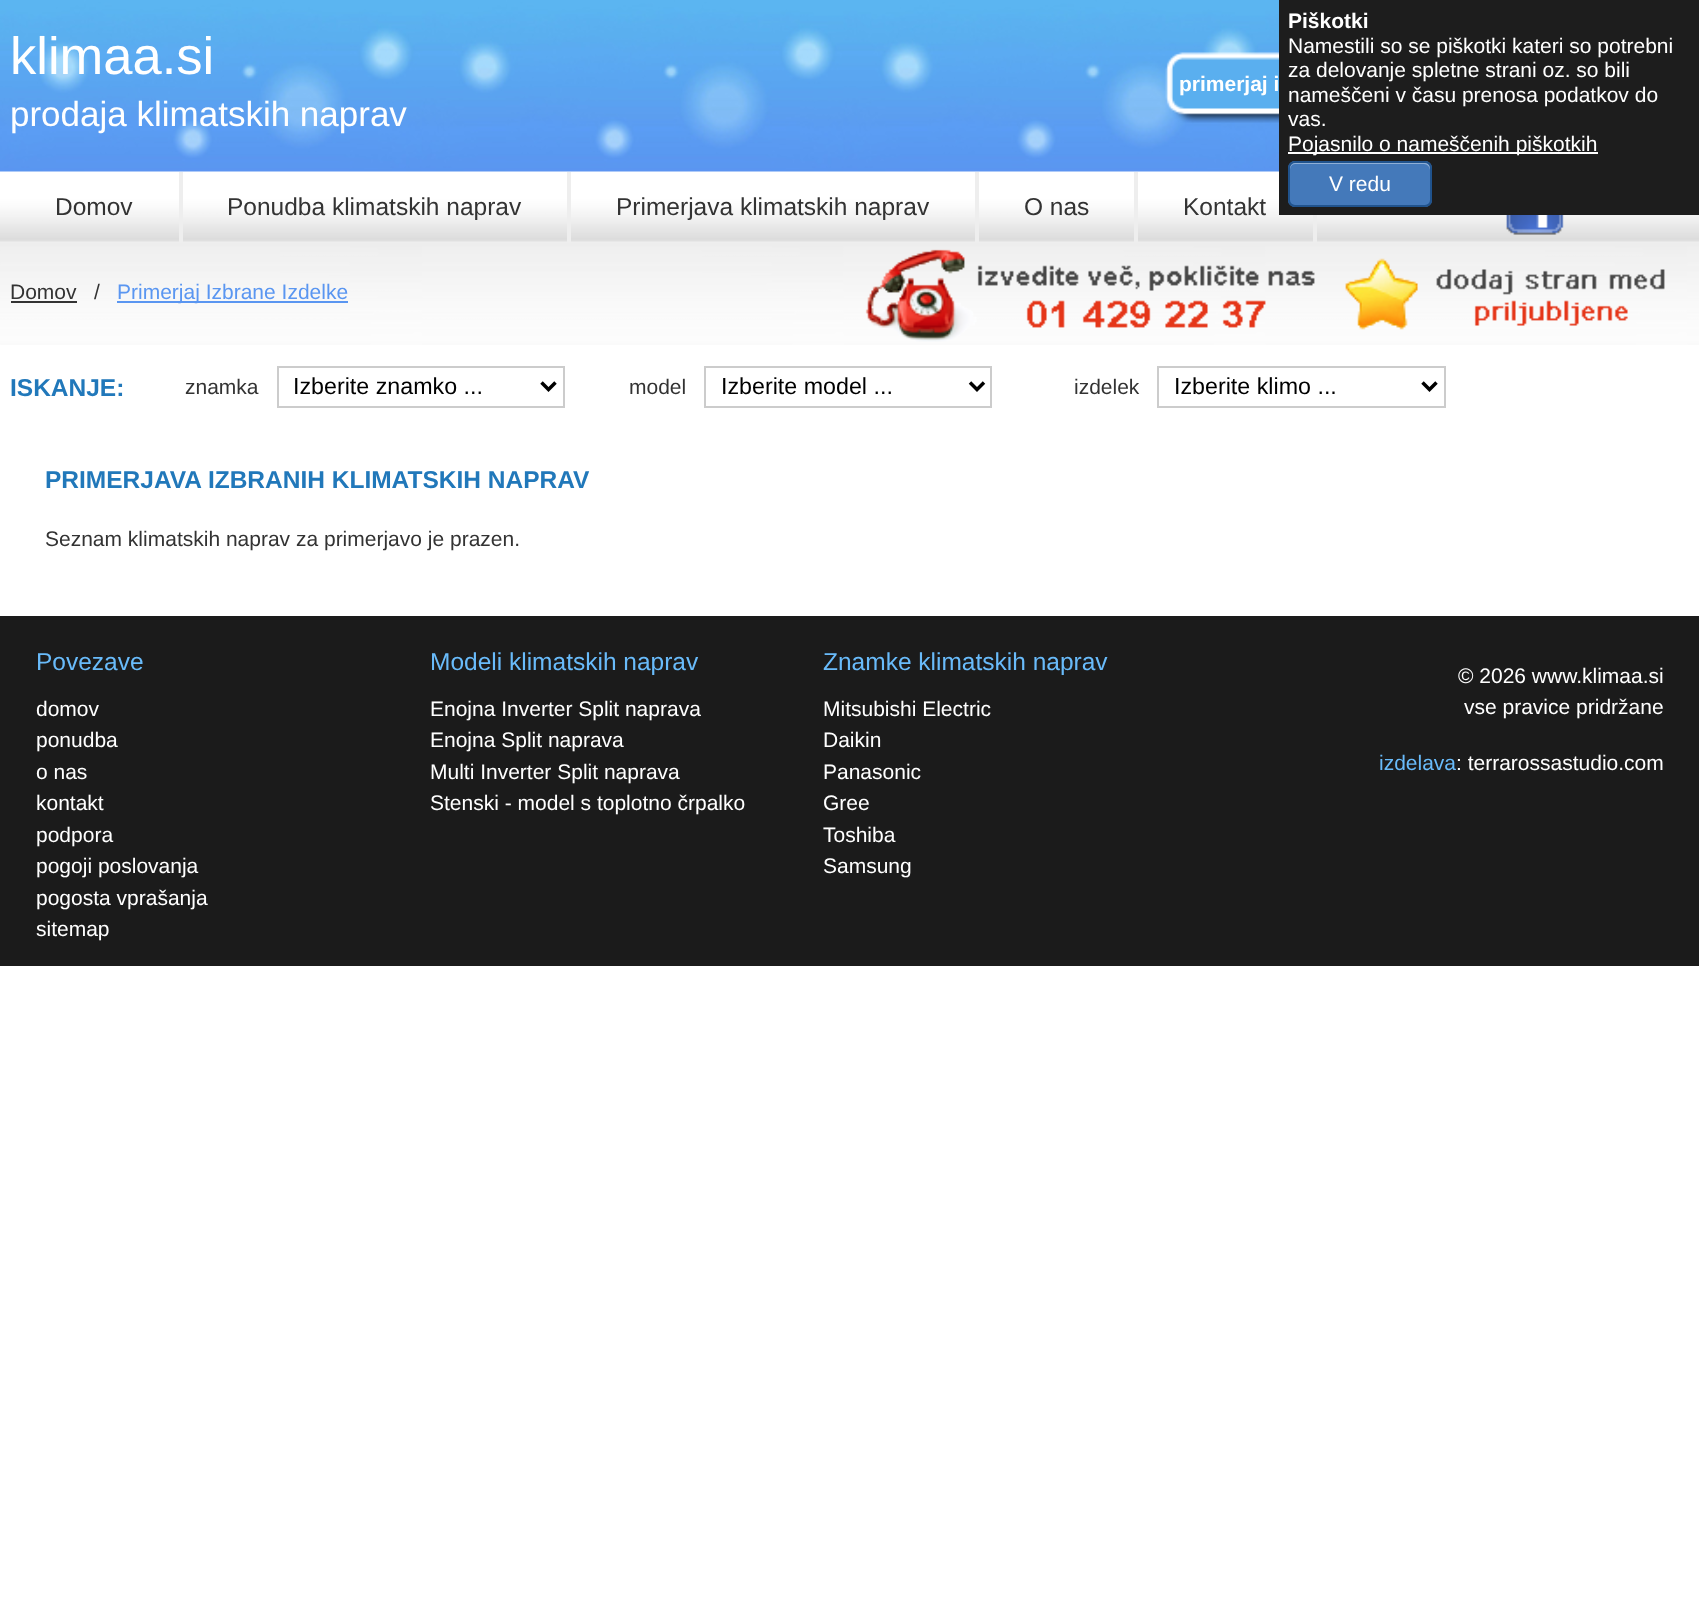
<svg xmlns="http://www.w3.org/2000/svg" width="1699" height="1600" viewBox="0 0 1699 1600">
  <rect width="100%" height="100%" fill="rgb(255,255,255)"/>
  <image x="0" y="0" width="1699" height="345" href="pic1.png"/>
  <text x="10" y="74" font-family="Liberation Sans" font-size="52.5" fill="rgb(255,255,255)">klimaa.si</text>
  <text x="10" y="126" font-family="Liberation Sans" font-size="35" fill="rgb(255,255,255)">prodaja klimatskih naprav</text>
  <image x="1165" y="52" width="114" height="71" href="pic2.png"/>
  <text x="1179" y="91" font-family="Liberation Sans" font-size="21" font-weight="bold" fill="rgb(255,255,255)">primerjaj i</text>
  <rect x="179" y="172" width="4" height="70" fill="rgb(238,238,238)"/>
  <text x="55" y="215" font-family="Liberation Sans" font-size="24.5" fill="rgb(51,51,51)">Domov</text>
  <rect x="567" y="172" width="4" height="70" fill="rgb(238,238,238)"/>
  <text x="227" y="215" font-family="Liberation Sans" font-size="24.5" fill="rgb(51,51,51)">Ponudba klimatskih naprav</text>
  <rect x="975" y="172" width="4" height="70" fill="rgb(238,238,238)"/>
  <text x="616" y="215" font-family="Liberation Sans" font-size="24.5" fill="rgb(51,51,51)">Primerjava klimatskih naprav</text>
  <rect x="1134" y="172" width="4" height="70" fill="rgb(238,238,238)"/>
  <text x="1024" y="215" font-family="Liberation Sans" font-size="24.5" fill="rgb(51,51,51)">O nas</text>
  <rect x="1313" y="215" width="4" height="27" fill="rgb(238,238,238)"/>
  <text x="1183" y="215" font-family="Liberation Sans" font-size="24.5" fill="rgb(51,51,51)">Kontakt</text>
  <image x="1506" y="215" width="58" height="20" href="pic3.png"/>
  <text x="10" y="299" font-family="Liberation Sans" font-size="21" fill="rgb(51,51,51)">Domov</text>
  <rect x="11" y="301" width="66" height="2" fill="rgb(51,51,51)"/>
  <text x="94" y="299" font-family="Liberation Sans" font-size="21" fill="rgb(51,51,51)">/</text>
  <rect x="117" y="301" width="231" height="2" fill="rgb(90,150,241)"/>
  <text x="117" y="299" font-family="Liberation Sans" font-size="21" fill="rgb(90,150,241)">Primerjaj Izbrane Izdelke</text>
  <image x="865" y="249" width="450" height="93" href="pic4.png"/>
  <image x="1345" y="258" width="320" height="72" href="pic5.png"/>
  <text x="10" y="396" font-family="Liberation Sans" font-size="24.5" font-weight="bold" fill="rgb(33,120,186)">ISKANJE:</text>
  <text x="185" y="394" font-family="Liberation Sans" font-size="21" fill="rgb(51,51,51)">znamka</text>
  <rect x="278" y="367" width="286" height="40" fill="none" stroke="rgb(204,204,204)" stroke-width="2"/>
  <path d="M541.5 382.5L548.5 389.5L555.5 382.5" fill="none" stroke="rgb(0,0,0)" stroke-width="3.5"/>
  <text x="293" y="394" font-family="Liberation Sans" font-size="23.25" fill="rgb(0,0,0)">Izberite znamko ...</text>
  <text x="629" y="394" font-family="Liberation Sans" font-size="21" fill="rgb(51,51,51)">model</text>
  <rect x="705" y="367" width="286" height="40" fill="none" stroke="rgb(204,204,204)" stroke-width="2"/>
  <path d="M970 382.5L977 389.5L984 382.5" fill="none" stroke="rgb(0,0,0)" stroke-width="3.5"/>
  <text x="721" y="394" font-family="Liberation Sans" font-size="23.25" fill="rgb(0,0,0)">Izberite model ...</text>
  <text x="1074" y="394" font-family="Liberation Sans" font-size="21" fill="rgb(51,51,51)">izdelek</text>
  <rect x="1158" y="367" width="287" height="40" fill="none" stroke="rgb(204,204,204)" stroke-width="2"/>
  <path d="M1422.5 382.5L1429.5 389.5L1436.5 382.5" fill="none" stroke="rgb(0,0,0)" stroke-width="3.5"/>
  <text x="1174" y="394" font-family="Liberation Sans" font-size="23.25" fill="rgb(0,0,0)">Izberite klimo ...</text>
  <text x="45" y="488" font-family="Liberation Sans" font-size="24.5" font-weight="bold" fill="rgb(33,120,186)">PRIMERJAVA IZBRANIH KLIMATSKIH NAPRAV</text>
  <text x="45" y="546" font-family="Liberation Sans" font-size="21" fill="rgb(51,51,51)">Seznam klimatskih naprav za primerjavo je prazen.</text>
  <rect x="1279" y="0" width="420" height="215" fill="rgb(29,29,29)"/>
  <text x="1288" y="28" font-family="Liberation Sans" font-size="21" font-weight="bold" fill="rgb(255,255,255)">Piškotki</text>
  <g font-family="Liberation Sans" font-size="21" fill="rgb(255,255,255)">
    <text>
      <tspan x="1288" y="53">Namestili so se piškotki kateri so potrebni</tspan>
      <tspan x="1288" y="77">za delovanje spletne strani oz. so bili</tspan>
      <tspan x="1288" y="102">nameščeni v času prenosa podatkov do</tspan>
      <tspan x="1288" y="126">vas.</tspan>
    </text>
  </g>
  <rect x="1288" y="152" width="310" height="2" fill="rgb(255,255,255)"/>
  <text x="1288" y="151" font-family="Liberation Sans" font-size="21" fill="rgb(255,255,255)">Pojasnilo o nameščenih piškotkih</text>
  <rect x="1288" y="161" width="144" height="46" rx="7" fill="rgb(68,121,186)"/>
  <path d="M1295 164H1424C1427 164 1430 167 1430 170V168C1430 165 1428 163 1425 163H1295C1292 163 1290 165 1290 168V170C1290 167 1292 164 1295 164Z" fill="rgb(143,175,214)"/>
  <rect x="1289" y="162" width="142" height="44" rx="6" fill="none" stroke="rgb(32,83,141)" stroke-width="2"/>
  <text x="1329" y="191" font-family="Liberation Sans" font-size="21" fill="rgb(255,255,255)">V redu</text>
  <rect x="0" y="616" width="1699" height="350" fill="rgb(27,27,27)"/>
  <text x="36" y="670" font-family="Liberation Sans" font-size="24.5" fill="rgb(105,187,250)">Povezave</text>
  <g font-family="Liberation Sans" font-size="21" fill="rgb(255,255,255)">
    <text>
      <tspan x="36" y="716">domov</tspan>
      <tspan x="36" y="747">ponudba</tspan>
      <tspan x="36" y="779">o nas</tspan>
      <tspan x="36" y="810">kontakt</tspan>
      <tspan x="36" y="842">podpora</tspan>
      <tspan x="36" y="873">pogoji poslovanja</tspan>
      <tspan x="36" y="905">pogosta vprašanja</tspan>
      <tspan x="36" y="936">sitemap</tspan>
    </text>
  </g>
  <text x="430" y="670" font-family="Liberation Sans" font-size="24.5" fill="rgb(105,187,250)">Modeli klimatskih naprav</text>
  <g font-family="Liberation Sans" font-size="21" fill="rgb(255,255,255)">
    <text>
      <tspan x="430" y="716">Enojna Inverter Split naprava</tspan>
      <tspan x="430" y="747">Enojna Split naprava</tspan>
      <tspan x="430" y="779">Multi Inverter Split naprava</tspan>
      <tspan x="430" y="810">Stenski - model s toplotno črpalko</tspan>
    </text>
  </g>
  <text x="823" y="670" font-family="Liberation Sans" font-size="24.5" fill="rgb(105,187,250)">Znamke klimatskih naprav</text>
  <g font-family="Liberation Sans" font-size="21" fill="rgb(255,255,255)">
    <text>
      <tspan x="823" y="716">Mitsubishi Electric</tspan>
      <tspan x="823" y="747">Daikin</tspan>
      <tspan x="823" y="779">Panasonic</tspan>
      <tspan x="823" y="810">Gree</tspan>
      <tspan x="823" y="842">Toshiba</tspan>
      <tspan x="823" y="873">Samsung</tspan>
    </text>
    <text x="1458" y="683">© 2026 www.klimaa.si</text>
    <text x="1464" y="714">vse pravice pridržane</text>
  </g>
  <text x="1379" y="770" font-family="Liberation Sans" font-size="21" fill="rgb(105,187,250)">izdelava</text>
  <text x="1456" y="770" font-family="Liberation Sans" font-size="21" fill="rgb(255,255,255)">: terrarossastudio.com</text>
</svg>
